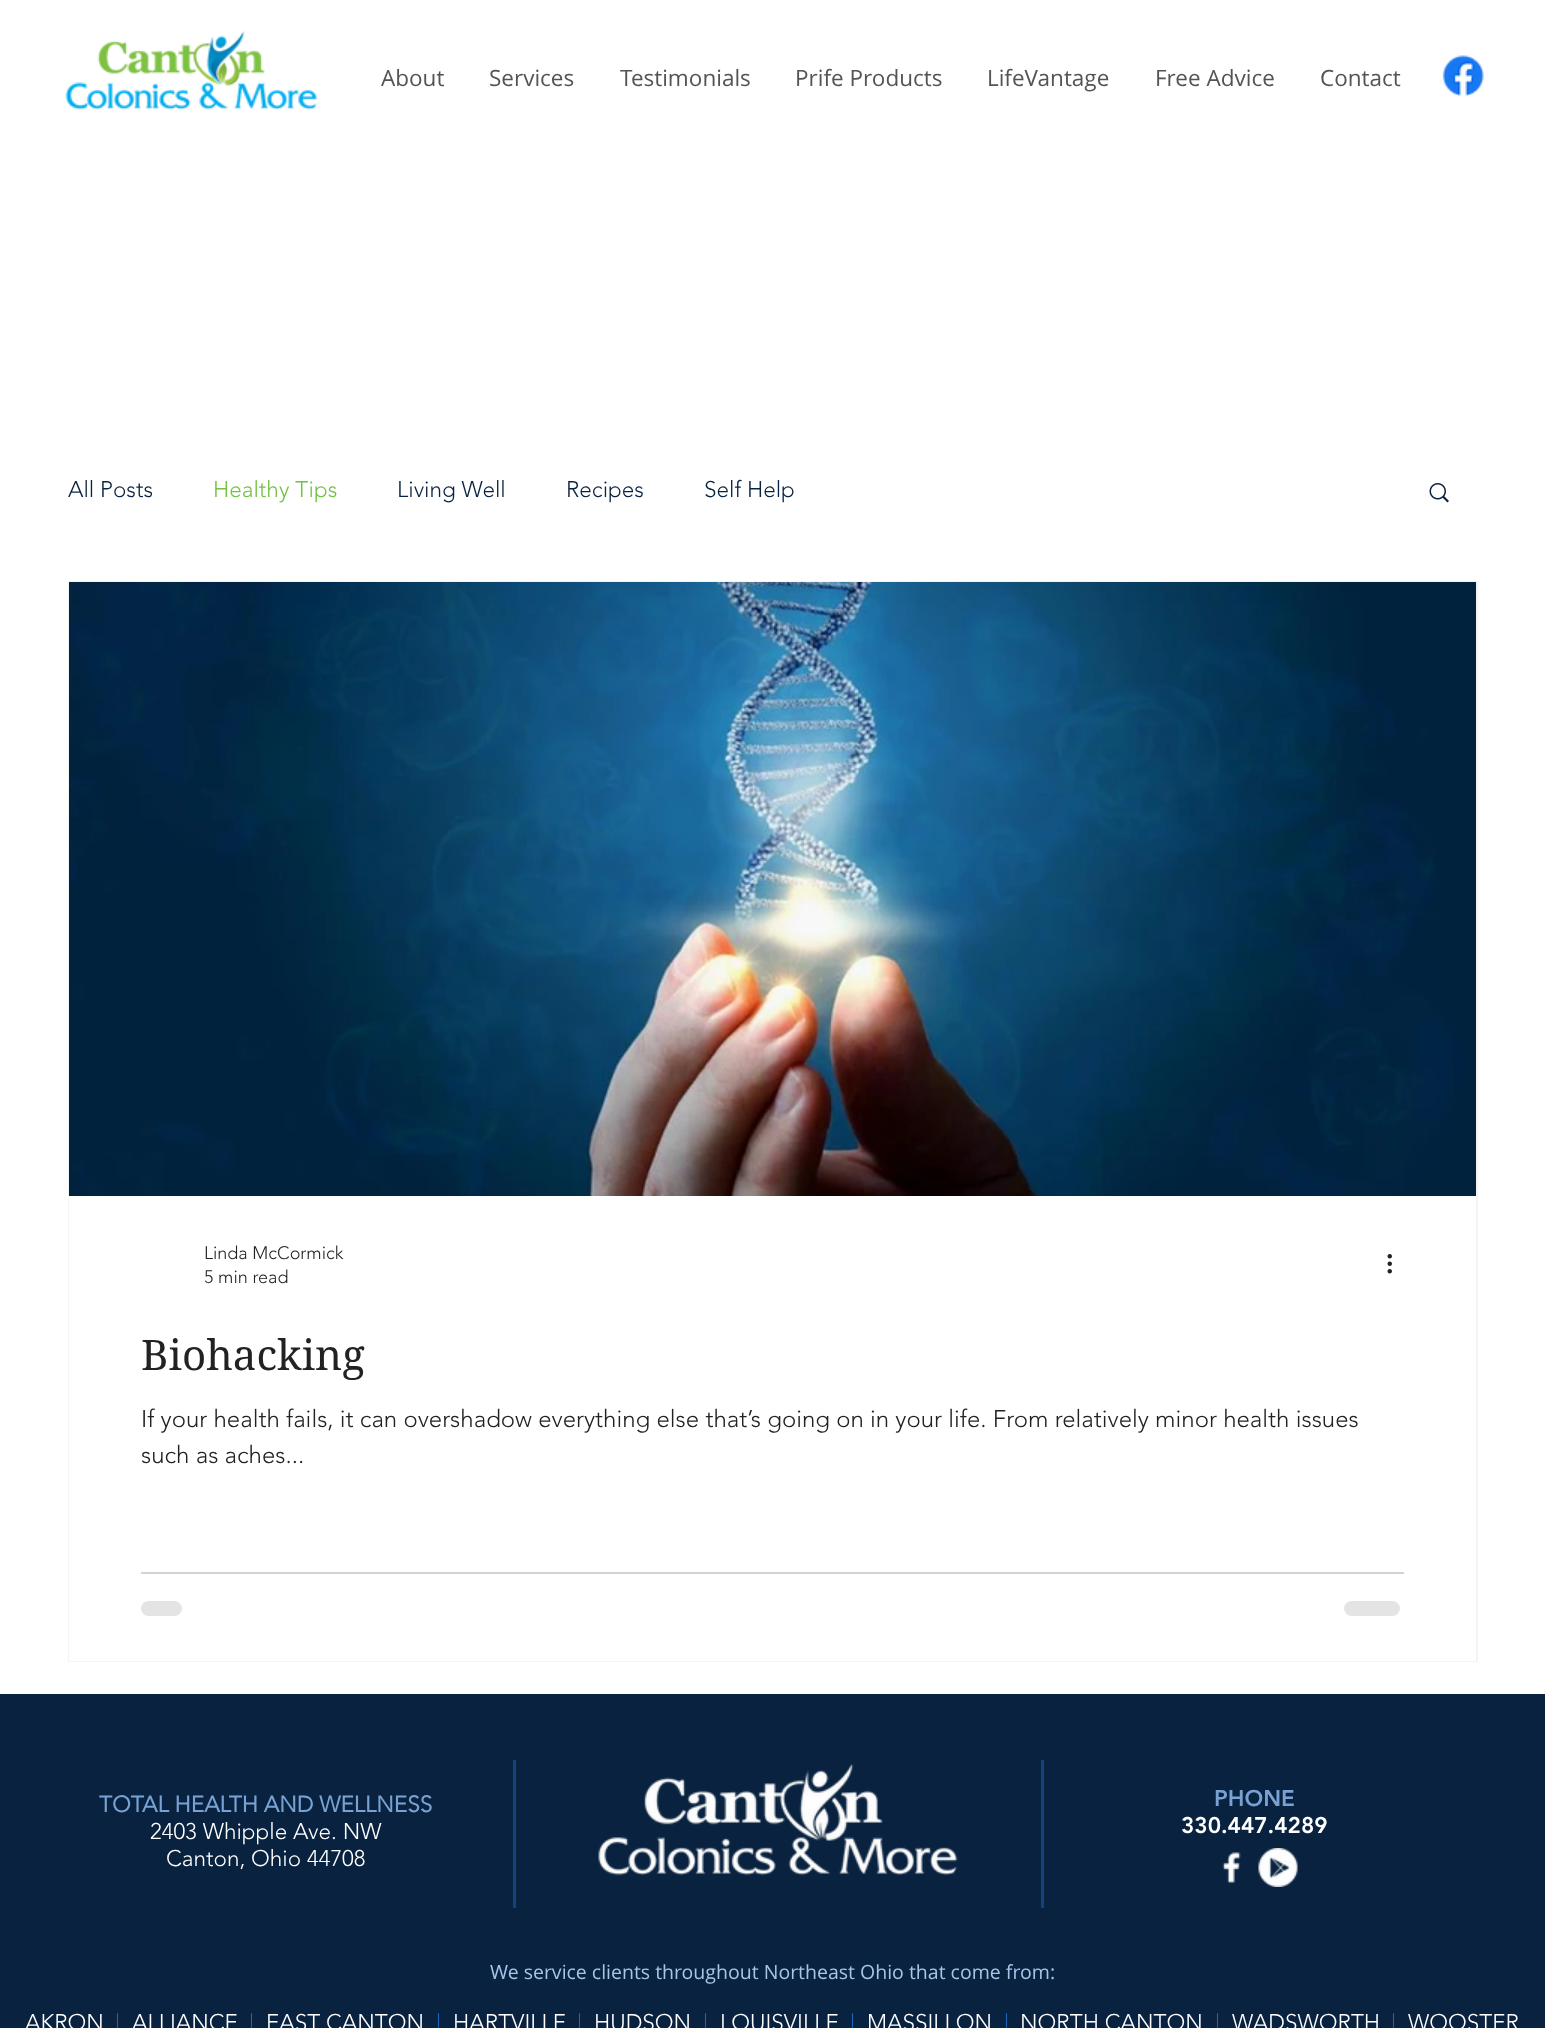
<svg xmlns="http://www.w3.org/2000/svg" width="1545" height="2028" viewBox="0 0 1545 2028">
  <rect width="100%" height="100%" fill="rgb(255,255,255)"/>
  <image x="65" y="31" width="252" height="79" href="pic1.png"/>
  <g font-family="Open Sans" font-size="22.5" fill="rgb(85,83,83)">
    <text x="381" y="86">About</text>
    <text x="489" y="86">Services</text>
    <text x="620" y="86">Testimonials</text>
    <text x="795" y="86">Prife Products</text>
    <text x="987" y="86">LifeVantage</text>
    <text x="1155" y="86">Free Advice</text>
    <text x="1320" y="86">Contact</text>
  </g>
  <image x="1442" y="55" width="42" height="42" href="pic2.png"/>
  <text x="68" y="497" font-family="'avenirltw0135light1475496'" font-size="22.5" font-weight="300" fill="rgb(9,34,63)">All Posts</text>
  <text x="213" y="497" font-family="'avenirltw0135light1475496'" font-size="22.5" font-weight="300" fill="rgb(116,194,68)">Healthy Tips</text>
  <g font-family="'avenirltw0135light1475496'" font-size="22.5" font-weight="300" fill="rgb(9,34,63)">
    <text x="397" y="497">Living Well</text>
    <text x="566" y="497">Recipes</text>
    <text x="704" y="497">Self Help</text>
  </g>
  <image x="1429" y="483" width="20" height="20" href="pic3.png"/>
  <rect x="69" y="582" width="1408" height="1079" fill="none" stroke="rgb(244,244,244)" stroke-width="2"/>
  <image x="69" y="582" width="1407" height="614" href="pic4.png"/>
  <rect x="69" y="1196" width="1407" height="465" fill="rgb(255,255,255)"/>
  <g font-family="'avenirltw0135light1475496'" font-size="18" font-weight="300" fill="rgb(34,34,34)">
    <text>
      <tspan x="204" y="1259">Linda McCormick</tspan>
      <tspan x="204" y="1283">5 min read</tspan>
    </text>
  </g>
  <image x="1387" y="1254" width="5" height="20" href="pic5.png"/>
  <text x="141" y="1370" font-family="'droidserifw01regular'" font-size="42" fill="rgb(34,34,34)">Biohacking</text>
  <g font-family="'avenirltw0135light1475496'" font-size="24" font-weight="300" fill="rgb(34,34,34)">
    <text>
      <tspan x="141" y="1427">If your health fails, it can overshadow everything else that’s going on in your life. From relatively minor health issues</tspan>
      <tspan x="141" y="1463">such as aches...</tspan>
    </text>
  </g>
  <rect x="141" y="1572" width="1263" height="2" fill="rgb(211,211,211)"/>
  <rect x="141" y="1601" width="41" height="15" rx="7.5" fill="rgb(228,228,228)"/>
  <rect x="1344" y="1601" width="56" height="15" rx="7.5" fill="rgb(228,228,228)"/>
  <rect x="0" y="1694" width="1545" height="334" fill="rgb(9,34,63)"/>
  <rect x="513" y="1760" width="3" height="148" fill="rgb(17,68,126)"/>
  <rect x="1041" y="1760" width="3" height="148" fill="rgb(17,68,126)"/>
  <text x="99" y="1812" font-family="'avenirltw0135light1475496'" font-size="22.5" font-weight="bold" fill="rgb(120,162,211)">TOTAL HEALTH AND WELLNESS</text>
  <g font-family="'avenirltw0135light1475496'" font-size="22.5" font-weight="300" fill="rgb(255,255,255)">
    <text x="150" y="1839">2403 Whipple Ave. NW</text>
    <text x="166" y="1866">Canton, Ohio 44708</text>
  </g>
  <image x="598" y="1764" width="360" height="112" href="pic6.png"/>
  <text x="1214" y="1806" font-family="'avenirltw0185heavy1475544'" font-size="22.5" font-weight="900" fill="rgb(120,162,211)">PHONE</text>
  <text x="1181" y="1833" font-family="'avenirltw0185heavy1475544'" font-size="22.5" font-weight="900" fill="rgb(255,255,255)">330.447.4289</text>
  <image x="1222" y="1852" width="19" height="31" href="pic7.png"/>
  <image x="1258" y="1848" width="40" height="39" href="pic8.png"/>
  <text x="490" y="1979" font-family="Open Sans" font-size="19.5" fill="rgb(166,197,233)">We service clients throughout Northeast Ohio that come from:</text>
  <text x="25" y="2030" font-family="'avenirltw0135light1475496'" font-size="22.5" font-weight="300" fill="rgb(255,255,255)">AKRON</text>
  <text x="115" y="2030" font-family="'avenirltw0135light1475496'" font-size="22.5" font-weight="300" fill="rgb(26,102,189)">|</text>
  <text x="132" y="2030" font-family="'avenirltw0135light1475496'" font-size="22.5" font-weight="300" fill="rgb(255,255,255)">ALLIANCE</text>
  <text x="249" y="2030" font-family="'avenirltw0135light1475496'" font-size="22.5" font-weight="300" fill="rgb(26,102,189)">|</text>
  <text x="266" y="2030" font-family="'avenirltw0135light1475496'" font-size="22.5" font-weight="300" fill="rgb(255,255,255)">EAST CANTON</text>
  <text x="436" y="2030" font-family="'avenirltw0135light1475496'" font-size="22.5" font-weight="300" fill="rgb(26,102,189)">|</text>
  <text x="453" y="2030" font-family="'avenirltw0135light1475496'" font-size="22.5" font-weight="300" fill="rgb(255,255,255)">HARTVILLE</text>
  <text x="577" y="2030" font-family="'avenirltw0135light1475496'" font-size="22.5" font-weight="300" fill="rgb(26,102,189)">|</text>
  <text x="594" y="2030" font-family="'avenirltw0135light1475496'" font-size="22.5" font-weight="300" fill="rgb(255,255,255)">HUDSON</text>
  <text x="703" y="2030" font-family="'avenirltw0135light1475496'" font-size="22.5" font-weight="300" fill="rgb(26,102,189)">|</text>
  <text x="720" y="2030" font-family="'avenirltw0135light1475496'" font-size="22.5" font-weight="300" fill="rgb(255,255,255)">LOUISVILLE</text>
  <text x="850" y="2030" font-family="'avenirltw0135light1475496'" font-size="22.5" font-weight="300" fill="rgb(26,102,189)">|</text>
  <text x="867" y="2030" font-family="'avenirltw0135light1475496'" font-size="22.5" font-weight="300" fill="rgb(255,255,255)">MASSILLON</text>
  <text x="1004" y="2030" font-family="'avenirltw0135light1475496'" font-size="22.5" font-weight="300" fill="rgb(26,102,189)">|</text>
  <text x="1020" y="2030" font-family="'avenirltw0135light1475496'" font-size="22.5" font-weight="300" fill="rgb(255,255,255)">NORTH CANTON</text>
  <text x="1215" y="2030" font-family="'avenirltw0135light1475496'" font-size="22.5" font-weight="300" fill="rgb(26,102,189)">|</text>
  <text x="1232" y="2030" font-family="'avenirltw0135light1475496'" font-size="22.5" font-weight="300" fill="rgb(255,255,255)">WADSWORTH</text>
  <text x="1391" y="2030" font-family="'avenirltw0135light1475496'" font-size="22.5" font-weight="300" fill="rgb(26,102,189)">|</text>
  <text x="1408" y="2030" font-family="'avenirltw0135light1475496'" font-size="22.5" font-weight="300" fill="rgb(255,255,255)">WOOSTER</text>
</svg>
